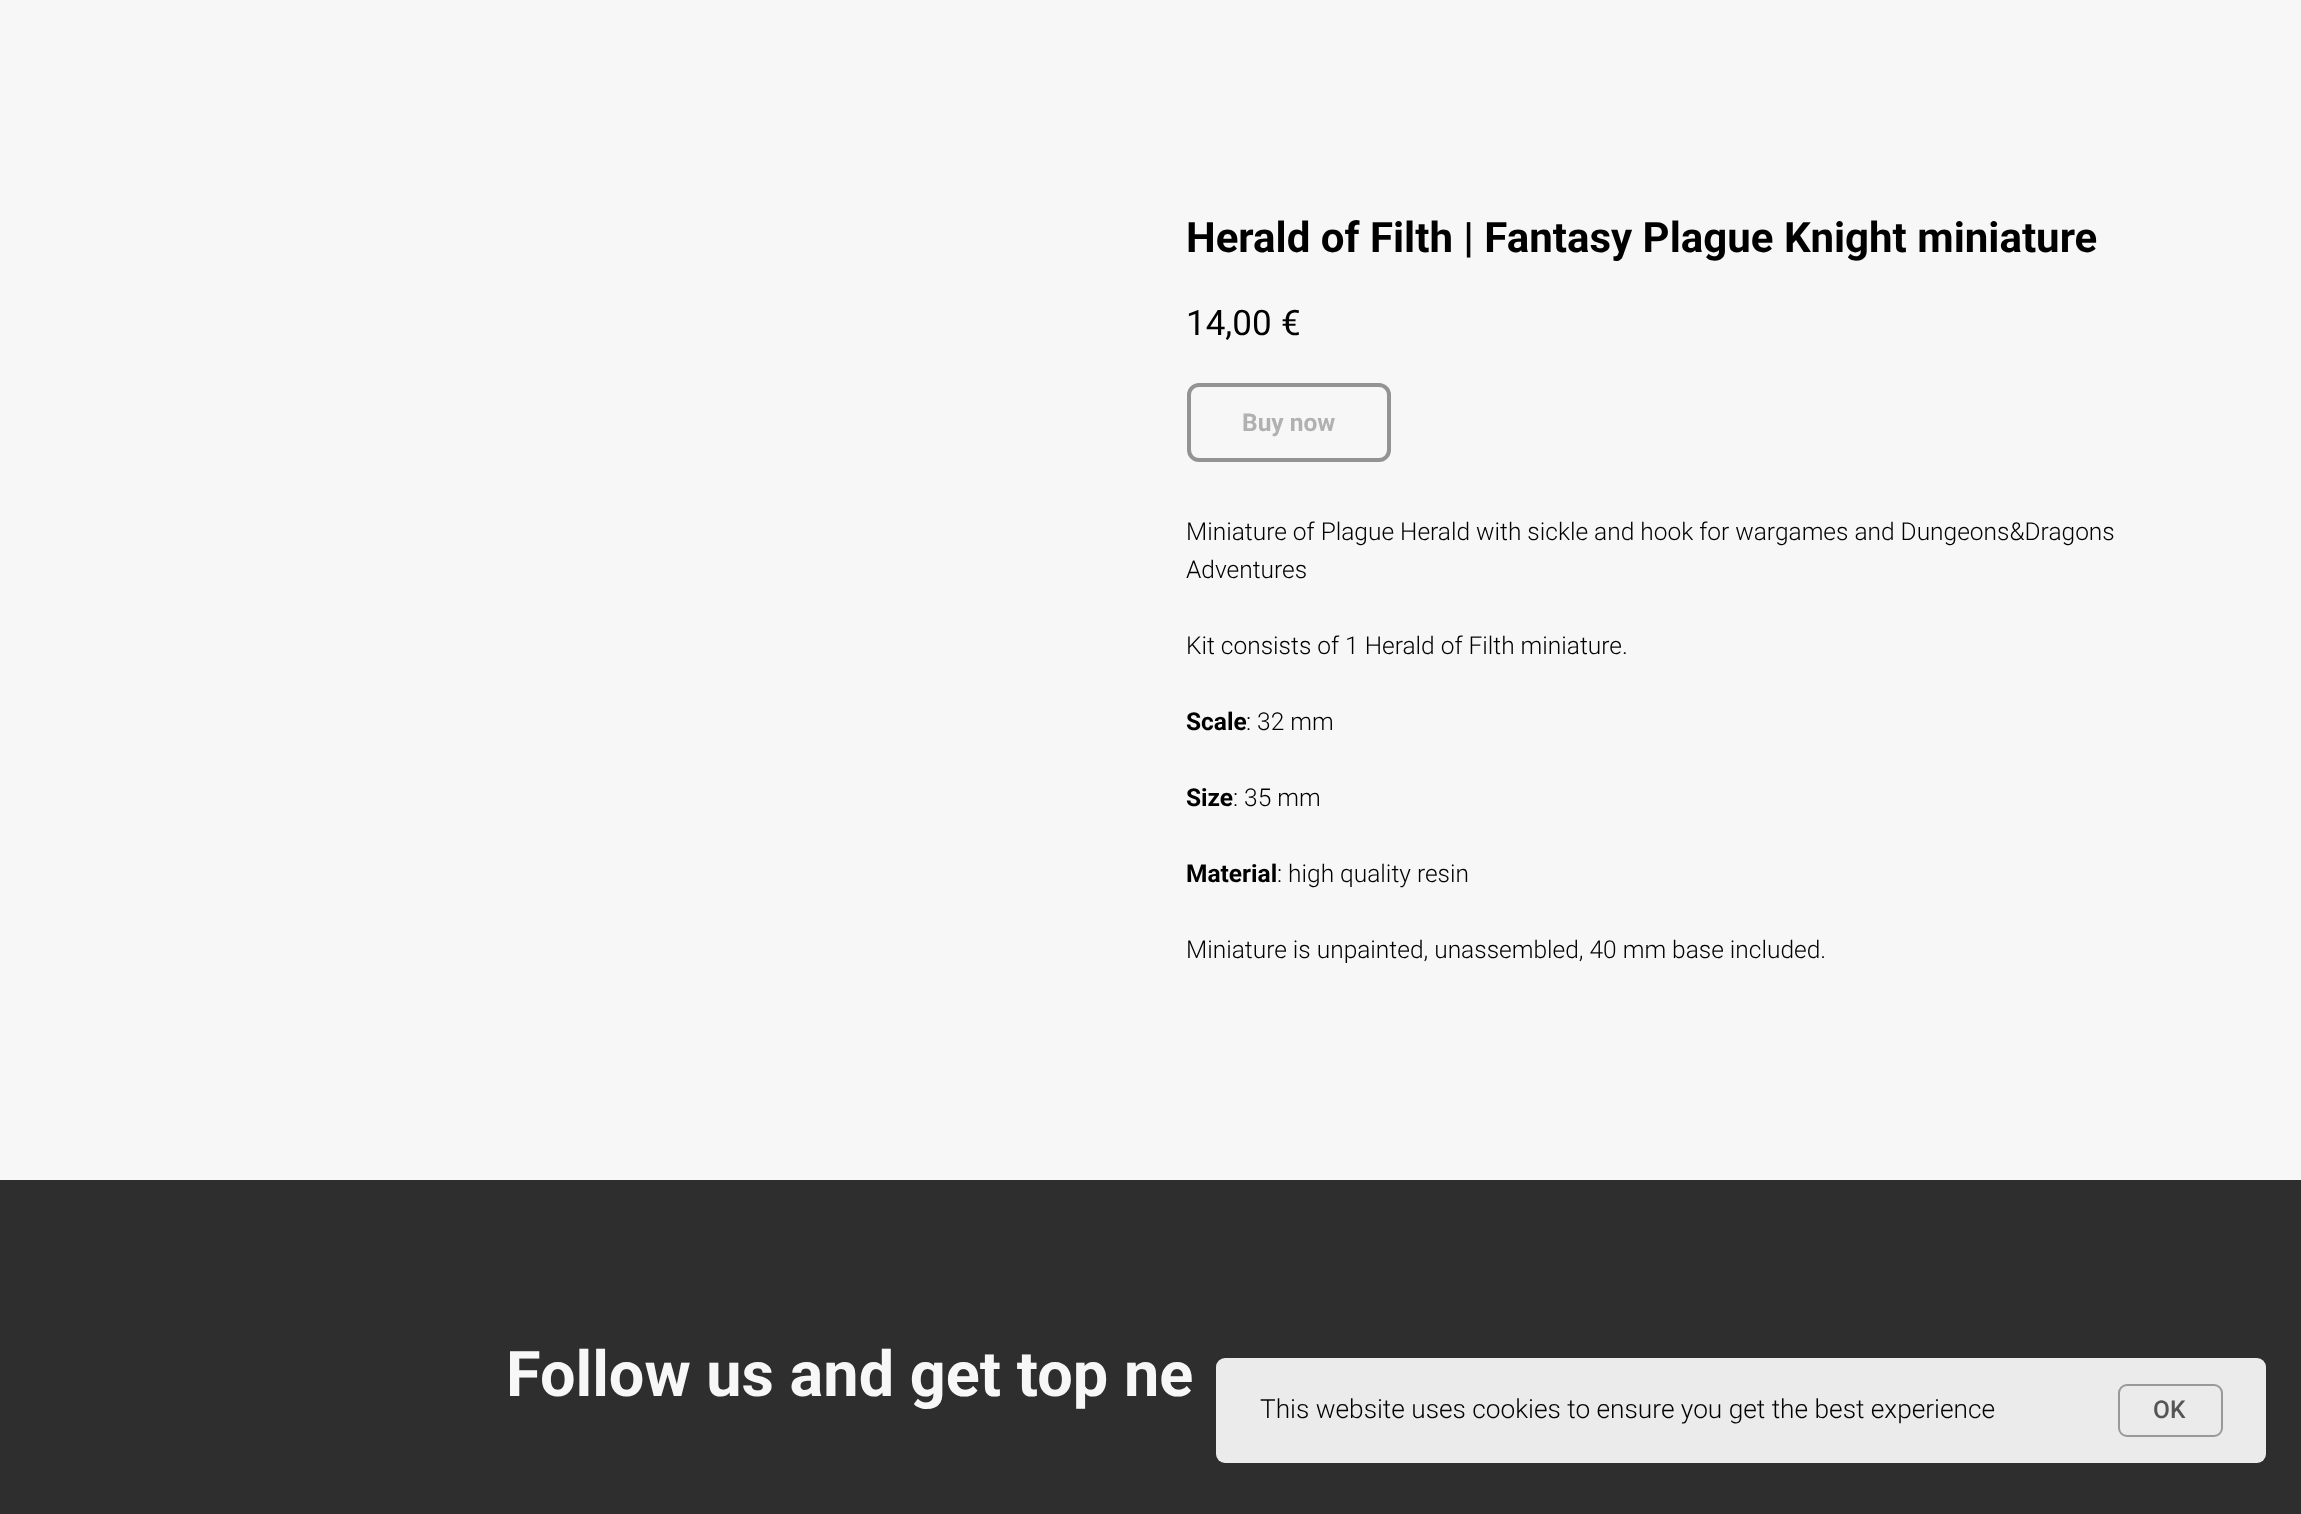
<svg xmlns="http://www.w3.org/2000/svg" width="2301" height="1514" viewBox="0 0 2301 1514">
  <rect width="100%" height="100%" fill="rgb(247,247,247)"/>
  <text x="1186" y="252" font-family="Roboto" font-size="42" font-weight="bold" fill="rgb(0,0,0)">Herald of Filth | Fantasy Plague Knight miniature</text>
  <g font-family="Roboto" font-size="35" fill="rgb(0,0,0)">
    <text x="1186" y="335">14,00</text>
    <text x="1281" y="335">€</text>
  </g>
  <rect x="1189" y="385" width="200" height="75" rx="10" fill="none" stroke="rgb(147,147,147)" stroke-width="4"/>
  <text x="1242" y="431" font-family="Roboto" font-size="24.5" font-weight="bold" fill="rgb(177,177,177)">Buy now</text>
  <g font-family="Roboto" font-size="24.5" font-weight="300" fill="rgb(0,0,0)">
    <text>
      <tspan x="1186" y="540">Miniature of Plague Herald with sickle and hook for wargames and Dungeons&amp;Dragons</tspan>
      <tspan x="1186" y="578">Adventures</tspan>
    </text>
    <text x="1186" y="654">Kit consists of 1 Herald of Filth miniature.</text>
  </g>
  <text x="1186" y="730" font-family="Roboto" font-size="24.5" font-weight="bold" fill="rgb(0,0,0)">Scale</text>
  <text x="1246" y="730" font-family="Roboto" font-size="24.5" font-weight="300" fill="rgb(0,0,0)">: 32 mm</text>
  <text x="1186" y="806" font-family="Roboto" font-size="24.5" font-weight="bold" fill="rgb(0,0,0)">Size</text>
  <text x="1233" y="806" font-family="Roboto" font-size="24.5" font-weight="300" fill="rgb(0,0,0)">: 35 mm</text>
  <text x="1186" y="882" font-family="Roboto" font-size="24.5" font-weight="bold" fill="rgb(0,0,0)">Material</text>
  <g font-family="Roboto" font-size="24.5" font-weight="300" fill="rgb(0,0,0)">
    <text x="1277" y="882">: high quality resin</text>
    <text x="1186" y="958">Miniature is unpainted, unassembled, 40 mm base included.</text>
  </g>
  <rect x="0" y="1180" width="2301" height="334" fill="rgb(46,46,46)"/>
  <text x="506" y="1396" font-family="Roboto" font-size="63" font-weight="bold" fill="rgb(247,247,247)">Follow us and get top ne</text>
  <rect x="1216" y="1358" width="1050" height="105" rx="9" fill="rgb(235,235,235)"/>
  <text x="1260" y="1418" font-family="Roboto" font-size="26.25" font-weight="300" fill="rgb(0,0,0)">This website uses cookies to ensure you get the best experience</text>
  <rect x="2119" y="1385" width="103" height="51" rx="8" fill="none" stroke="rgb(153,153,153)" stroke-width="2"/>
  <text x="2153" y="1418" font-family="Roboto" font-size="24.5" font-weight="500" fill="rgb(85,85,85)">OK</text>
</svg>
